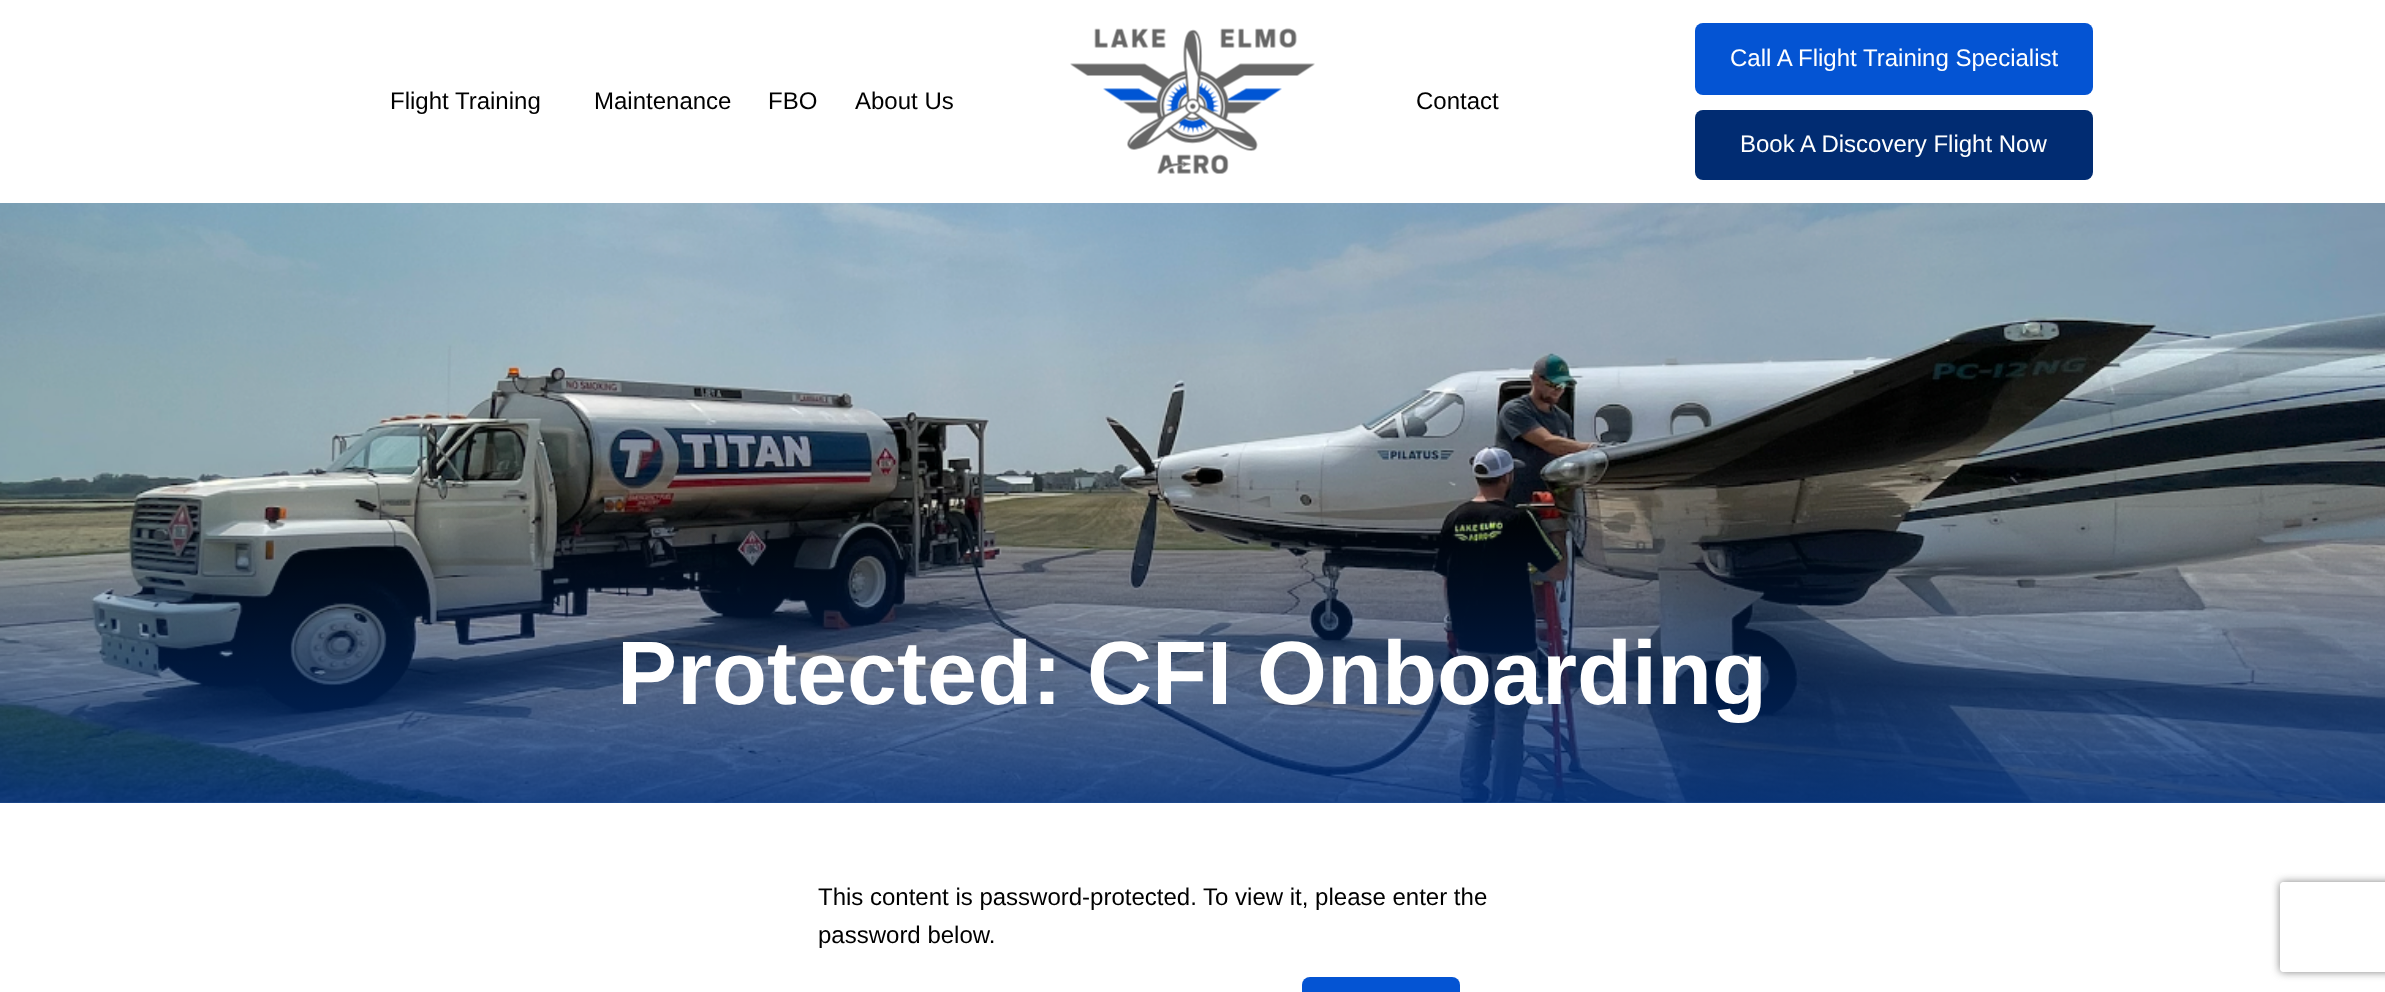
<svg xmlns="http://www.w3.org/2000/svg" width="2385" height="992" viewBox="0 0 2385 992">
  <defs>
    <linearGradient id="g1" gradientUnits="userSpaceOnUse" x1="1193" y1="202" x2="1193" y2="803"><stop offset="0.5" stop-color="rgb(0,49,126)" stop-opacity="0"/><stop offset="1" stop-color="rgb(0,49,126)" stop-opacity="0.87"/></linearGradient>
    <clipPath id="clip1"><path d="M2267 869H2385V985H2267ZM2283 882H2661C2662.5 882 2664 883.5 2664 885V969C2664 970.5 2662.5 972 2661 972H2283C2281.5 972 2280 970.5 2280 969V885C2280 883.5 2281.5 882 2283 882Z" clip-rule="evenodd"/></clipPath>
  </defs>
  <rect width="100%" height="100%" fill="rgb(255,255,255)"/>
  <g font-family="Liberation Sans" font-size="24" fill="rgb(0,0,0)">
    <text x="390" y="109">Flight Training</text>
    <text x="594" y="109">Maintenance</text>
    <text x="768" y="109">FBO</text>
    <text x="855" y="109">About Us</text>
  </g>
  <image x="1070" y="28" width="245" height="146" href="pic1.png"/>
  <text x="1416" y="109" font-family="Liberation Sans" font-size="24" fill="rgb(0,0,0)">Contact</text>
  <rect x="1695" y="23" width="398" height="72" rx="8" fill="rgb(4,84,211)"/>
  <text x="1730" y="66" font-family="Liberation Sans" font-size="24" fill="rgb(255,255,255)">Call A Flight Training Specialist</text>
  <rect x="1695" y="110" width="398" height="70" rx="8" fill="rgb(1,44,114)"/>
  <text x="1740" y="152" font-family="Liberation Sans" font-size="24" fill="rgb(255,255,255)">Book A Discovery Flight Now</text>
  <image x="0" y="203" width="2385" height="600" href="pic2.png"/>
  <rect x="0" y="510" width="2385" height="293" fill="url(#g1)"/>
  <text x="617" y="704" font-family="Liberation Sans" font-size="90" font-weight="bold" fill="rgb(255,255,255)">Protected: CFI Onboarding</text>
  <g font-family="Liberation Sans" font-size="24" fill="rgb(0,0,0)">
    <text>
      <tspan x="818" y="905">This content is password-protected. To view it, please enter the</tspan>
      <tspan x="818" y="943">password below.</tspan>
    </text>
  </g>
  <rect x="1302" y="977" width="158" height="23" rx="8" fill="rgb(4,84,211)"/>
  <g clip-path="url(#clip1)">
    <rect x="2280" y="882" width="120" height="90" rx="3" fill="rgb(128,128,128)" filter="blur(4px)"/>
  </g>
</svg>
